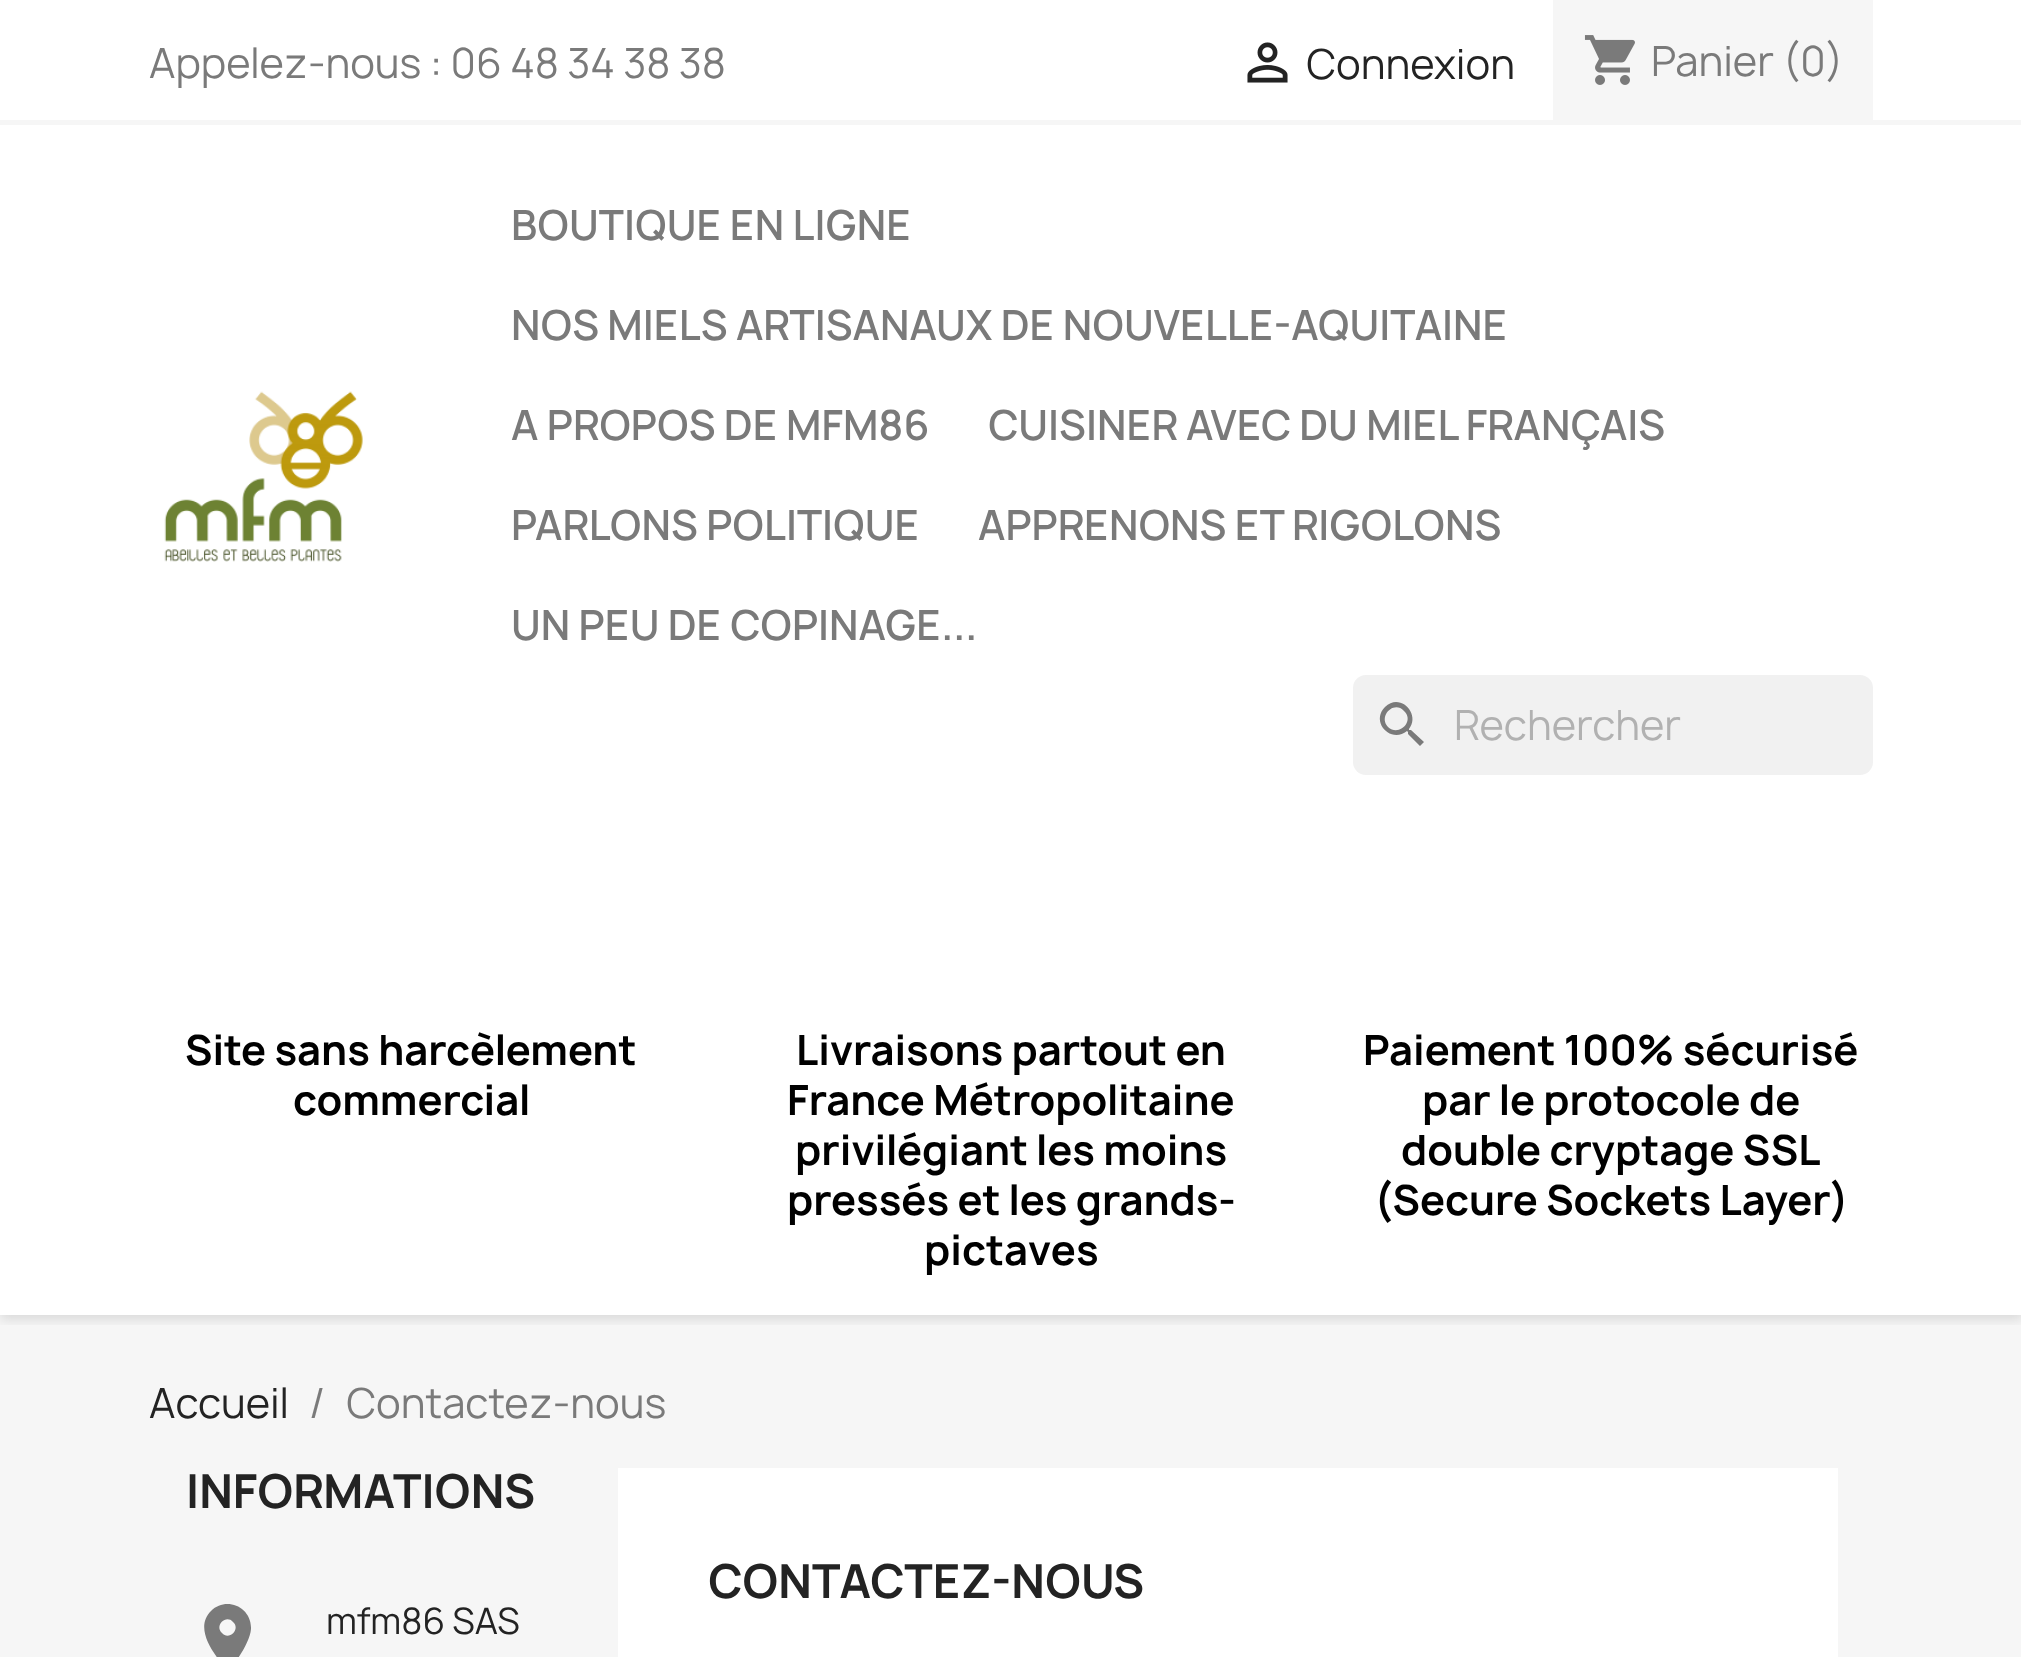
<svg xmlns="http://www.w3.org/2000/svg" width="2021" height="1657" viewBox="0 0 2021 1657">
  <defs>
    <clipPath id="clip1"><rect x="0" y="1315" width="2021" height="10"/></clipPath>
  </defs>
  <rect width="100%" height="100%" fill="rgb(255,255,255)"/>
  <rect x="0" y="1315" width="2021" height="342" fill="rgb(246,246,246)"/>
  <g clip-path="url(#clip1)">
    <rect x="0" y="5" width="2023" height="1315" fill="rgba(0,0,0,0.11)" filter="blur(6px)"/>
  </g>
  <rect x="0" y="120" width="2021" height="5" fill="rgb(246,246,246)"/>
  <text x="149" y="78" font-family="Manrope" font-size="40" fill="rgb(122,122,122)">Appelez-nous : 06 48 34 38 38</text>
  <image x="1247" y="42" width="41" height="41" href="pic1.png"/>
  <text x="1306" y="79" font-family="Manrope" font-size="40" fill="rgb(35,35,35)">Connexion</text>
  <rect x="1553" y="0" width="320" height="120" fill="rgb(246,246,246)"/>
  <image x="1584" y="35" width="51" height="50" href="pic2.png"/>
  <text x="1651" y="76" font-family="Manrope" font-size="40" fill="rgb(122,122,122)">Panier (0)</text>
  <image x="164" y="391" width="199" height="171" href="pic3.png"/>
  <g font-family="Manrope" font-size="40" font-weight="600" fill="rgb(122,122,122)">
    <text x="511" y="240">BOUTIQUE EN LIGNE</text>
    <text x="511" y="340">NOS MIELS ARTISANAUX DE NOUVELLE-AQUITAINE</text>
    <text x="511" y="440">A PROPOS DE MFM86</text>
    <text x="988" y="440">CUISINER AVEC DU MIEL FRANÇAIS</text>
    <text x="511" y="540">PARLONS POLITIQUE</text>
    <text x="978" y="540">APPRENONS ET RIGOLONS</text>
    <text x="511" y="640">UN PEU DE COPINAGE...</text>
  </g>
  <rect x="1353" y="675" width="520" height="100" rx="13" fill="rgb(241,241,241)"/>
  <path d="M1388 727C1399 737 1415 721 1404 711C1394 700 1378 716 1388 727ZM1411 730L1424 742L1420 746L1408 734V732L1407 731C1391 744 1370 722 1385 707C1400 692 1421 714 1409 729V730Z" fill="rgb(122,122,122)"/>
  <text x="1454" y="740" font-family="Manrope" font-size="40" fill="rgb(177,177,177)">Rechercher</text>
  <g font-family="Manrope" font-size="40" font-weight="bold" fill="rgb(0,0,0)">
    <text x="185" y="1065">Site sans harcèlement</text>
    <text x="293" y="1115">commercial</text>
    <text x="796" y="1065">Livraisons partout en</text>
    <text x="787" y="1115">France Métropolitaine</text>
    <text x="795" y="1165">privilégiant les moins</text>
    <text x="787" y="1215">pressés et les grands-</text>
    <text x="924" y="1265">pictaves</text>
    <text x="1363" y="1065">Paiement 100% sécurisé</text>
    <text x="1422" y="1115">par le protocole de</text>
    <text x="1401" y="1165">double cryptage SSL</text>
    <text x="1374" y="1215">(Secure Sockets Layer)</text>
  </g>
  <text x="149" y="1418" font-family="Manrope" font-size="40" fill="rgb(35,35,35)">Accueil</text>
  <g font-family="Manrope" font-size="40" fill="rgb(122,122,122)">
    <text x="309" y="1418">/</text>
    <text x="346" y="1418">Contactez-nous</text>
  </g>
  <text x="186" y="1508" font-family="Manrope" font-size="45" font-weight="bold" fill="rgb(35,35,35)">INFORMATIONS</text>
  <path d="M222 1633C229 1641 241 1629 233 1622C226 1614 214 1626 222 1633ZM211 1611C226 1596 252 1607 251 1629C250 1642 237 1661 228 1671C215 1656 193 1629 211 1611Z" fill="rgb(122,122,122)"/>
  <text x="326" y="1634" font-family="Manrope" font-size="35" fill="rgb(35,35,35)">mfm86 SAS</text>
  <rect x="618" y="1468" width="1220" height="189" fill="rgb(255,255,255)"/>
  <text x="708" y="1598" font-family="Manrope" font-size="45" font-weight="bold" fill="rgb(35,35,35)">CONTACTEZ-NOUS</text>
</svg>
